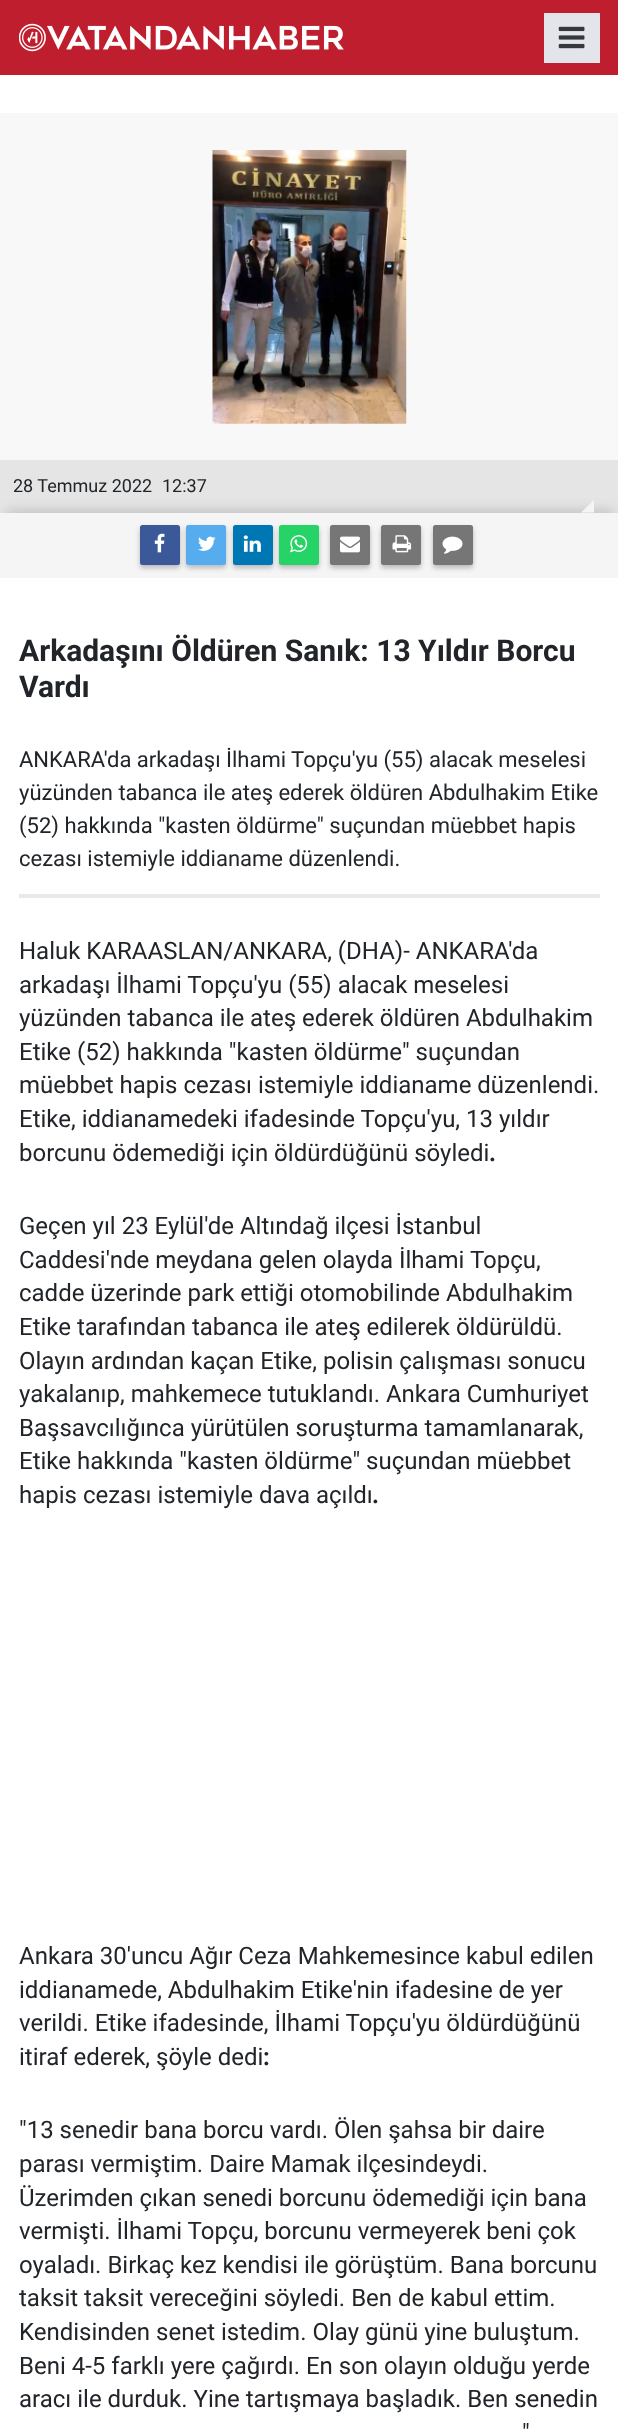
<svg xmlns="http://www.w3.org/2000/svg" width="618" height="2434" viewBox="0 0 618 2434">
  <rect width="100%" height="100%" fill="rgb(255,255,255)"/>
  <rect x="0" y="0" width="618" height="75" fill="rgb(191,30,46)"/>
  <image x="19" y="23" width="325" height="29" href="pic1.png"/>
  <rect x="544" y="13" width="56" height="50" fill="rgb(227,229,234)"/>
  <image x="558" y="26" width="27" height="23" href="pic2.png"/>
  <rect x="0" y="113" width="618" height="347" fill="rgb(248,248,248)"/>
  <image x="212" y="150" width="195" height="274" href="pic3.png"/>
  <rect x="0" y="460" width="618" height="53" fill="rgb(229,229,229)"/>
  <g font-family="Roboto" font-size="18" fill="rgb(33,37,41)">
    <text x="13" y="492">28 Temmuz 2022</text>
    <text x="162" y="492">12:37</text>
  </g>
  <rect x="6" y="510" width="607" height="53" fill="rgba(0,0,0,0.15)" filter="blur(6px)"/>
  <rect x="0" y="513" width="618" height="65" fill="rgb(245,245,245)"/>
  <path d="M594 512.5H581L594 500Z" fill="rgb(245,245,245)"/>
  <rect x="140" y="528" width="40" height="40" rx="2.5" fill="rgba(50,50,50,0.3)" filter="blur(2.5px)"/>
  <rect x="140" y="525" width="40" height="40" rx="2.5" fill="rgb(59,89,153)"/>
  <image x="154" y="533" width="11" height="20" href="pic4.png"/>
  <rect x="186" y="528" width="40" height="40" rx="2.5" fill="rgba(50,50,50,0.3)" filter="blur(2.5px)"/>
  <rect x="186" y="525" width="40" height="40" rx="2.5" fill="rgb(85,172,238)"/>
  <image x="198" y="536" width="18" height="15" href="pic5.png"/>
  <rect x="233" y="528" width="40" height="40" rx="2.5" fill="rgba(50,50,50,0.3)" filter="blur(2.5px)"/>
  <rect x="233" y="525" width="40" height="40" rx="2.5" fill="rgb(0,119,181)"/>
  <image x="243" y="535" width="18" height="17" href="pic6.png"/>
  <rect x="279" y="528" width="40" height="40" rx="2.5" fill="rgba(50,50,50,0.3)" filter="blur(2.5px)"/>
  <rect x="279" y="525" width="40" height="40" rx="2.5" fill="rgb(37,211,102)"/>
  <image x="290" y="535" width="18" height="18" href="pic7.png"/>
  <rect x="330" y="528" width="40" height="40" rx="2.5" fill="rgba(50,50,50,0.3)" filter="blur(2.5px)"/>
  <rect x="330" y="525" width="40" height="40" rx="2.5" fill="rgb(118,118,118)"/>
  <image x="340" y="536" width="20" height="17" href="pic8.png"/>
  <rect x="381" y="528" width="40" height="40" rx="2.5" fill="rgba(50,50,50,0.3)" filter="blur(2.5px)"/>
  <rect x="381" y="525" width="40" height="40" rx="2.5" fill="rgb(118,118,118)"/>
  <image x="392" y="535" width="20" height="18" href="pic9.png"/>
  <rect x="433" y="528" width="40" height="40" rx="2.5" fill="rgba(50,50,50,0.3)" filter="blur(2.5px)"/>
  <rect x="433" y="525" width="40" height="40" rx="2.5" fill="rgb(118,118,118)"/>
  <image x="442" y="536" width="21" height="18" href="pic10.png"/>
  <rect x="19" y="894" width="581" height="4" fill="rgb(233,233,233)"/>
  <g font-family="Roboto" font-size="30" font-weight="bold" fill="rgb(33,37,41)">
    <text>
      <tspan x="19" y="661">Arkadaşını Öldüren Sanık: 13 Yıldır Borcu</tspan>
      <tspan x="19" y="697">Vardı</tspan>
    </text>
  </g>
  <g font-family="Roboto" font-size="22" fill="rgb(33,37,41)">
    <text>
      <tspan x="19" y="767">ANKARA'da arkadaşı İlhami Topçu'yu (55) alacak meselesi</tspan>
      <tspan x="19" y="800">yüzünden tabanca ile ateş ederek öldüren Abdulhakim Etike</tspan>
      <tspan x="19" y="833">(52) hakkında "kasten öldürme" suçundan müebbet hapis</tspan>
      <tspan x="19" y="866">cezası istemiyle iddianame düzenlendi.</tspan>
    </text>
  </g>
  <g font-family="Roboto" font-size="24" fill="rgb(33,37,41)">
    <text>
      <tspan x="19" y="959">Haluk KARAASLAN/ANKARA, (DHA)- ANKARA'da</tspan>
      <tspan x="19" y="993">arkadaşı İlhami Topçu'yu (55) alacak meselesi</tspan>
      <tspan x="19" y="1026">yüzünden tabanca ile ateş ederek öldüren Abdulhakim</tspan>
      <tspan x="19" y="1060">Etike (52) hakkında "kasten öldürme" suçundan</tspan>
      <tspan x="19" y="1093">müebbet hapis cezası istemiyle iddianame düzenlendi.</tspan>
      <tspan x="19" y="1127">Etike, iddianamedeki ifadesinde Topçu'yu, 13 yıldır</tspan>
      <tspan x="19" y="1161">borcunu ödemediği için öldürdüğünü söyledi</tspan>
    </text>
  </g>
  <text x="489" y="1161" font-family="Roboto" font-size="24" font-weight="bold" fill="rgb(33,37,41)">.</text>
  <g font-family="Roboto" font-size="24" fill="rgb(33,37,41)">
    <text>
      <tspan x="19" y="1234">Geçen yıl 23 Eylül'de Altındağ ilçesi İstanbul</tspan>
      <tspan x="19" y="1268">Caddesi'nde meydana gelen olayda İlhami Topçu,</tspan>
      <tspan x="19" y="1301">cadde üzerinde park ettiği otomobilinde Abdulhakim</tspan>
      <tspan x="19" y="1335">Etike tarafından tabanca ile ateş edilerek öldürüldü.</tspan>
      <tspan x="19" y="1369">Olayın ardından kaçan Etike, polisin çalışması sonucu</tspan>
      <tspan x="19" y="1402">yakalanıp, mahkemece tutuklandı. Ankara Cumhuriyet</tspan>
      <tspan x="19" y="1436">Başsavcılığınca yürütülen soruşturma tamamlanarak,</tspan>
      <tspan x="19" y="1469">Etike hakkında "kasten öldürme" suçundan müebbet</tspan>
      <tspan x="19" y="1503">hapis cezası istemiyle dava açıldı</tspan>
    </text>
  </g>
  <text x="372" y="1503" font-family="Roboto" font-size="24" font-weight="bold" fill="rgb(33,37,41)">.</text>
  <g font-family="Roboto" font-size="24" fill="rgb(33,37,41)">
    <text>
      <tspan x="19" y="1964">Ankara 30'uncu Ağır Ceza Mahkemesince kabul edilen</tspan>
      <tspan x="19" y="1998">iddianamede, Abdulhakim Etike'nin ifadesine de yer</tspan>
      <tspan x="19" y="2031">verildi. Etike ifadesinde, İlhami Topçu'yu öldürdüğünü</tspan>
      <tspan x="19" y="2065">itiraf ederek, şöyle dedi</tspan>
    </text>
  </g>
  <text x="263" y="2065" font-family="Roboto" font-size="24" font-weight="bold" fill="rgb(33,37,41)">:</text>
  <g font-family="Roboto" font-size="24" fill="rgb(33,37,41)">
    <text>
      <tspan x="19" y="2138">"13 senedir bana borcu vardı. Ölen şahsa bir daire</tspan>
      <tspan x="19" y="2172">parası vermiştim. Daire Mamak ilçesindeydi.</tspan>
      <tspan x="19" y="2206">Üzerimden çıkan senedi borcunu ödemediği için bana</tspan>
      <tspan x="19" y="2239">vermişti. İlhami Topçu, borcunu vermeyerek beni çok</tspan>
      <tspan x="19" y="2273">oyaladı. Birkaç kez kendisi ile görüştüm. Bana borcunu</tspan>
      <tspan x="19" y="2306">taksit taksit vereceğini söyledi. Ben de kabul ettim.</tspan>
      <tspan x="19" y="2340">Kendisinden senet istedim. Olay günü yine buluştum.</tspan>
      <tspan x="19" y="2374">Beni 4-5 farklı yere çağırdı. En son olayın olduğu yerde</tspan>
      <tspan x="19" y="2407">aracı ile durduk. Yine tartışmaya başladık. Ben senedin</tspan>
    </text>
    <text x="522" y="2441">"</text>
  </g>
</svg>
